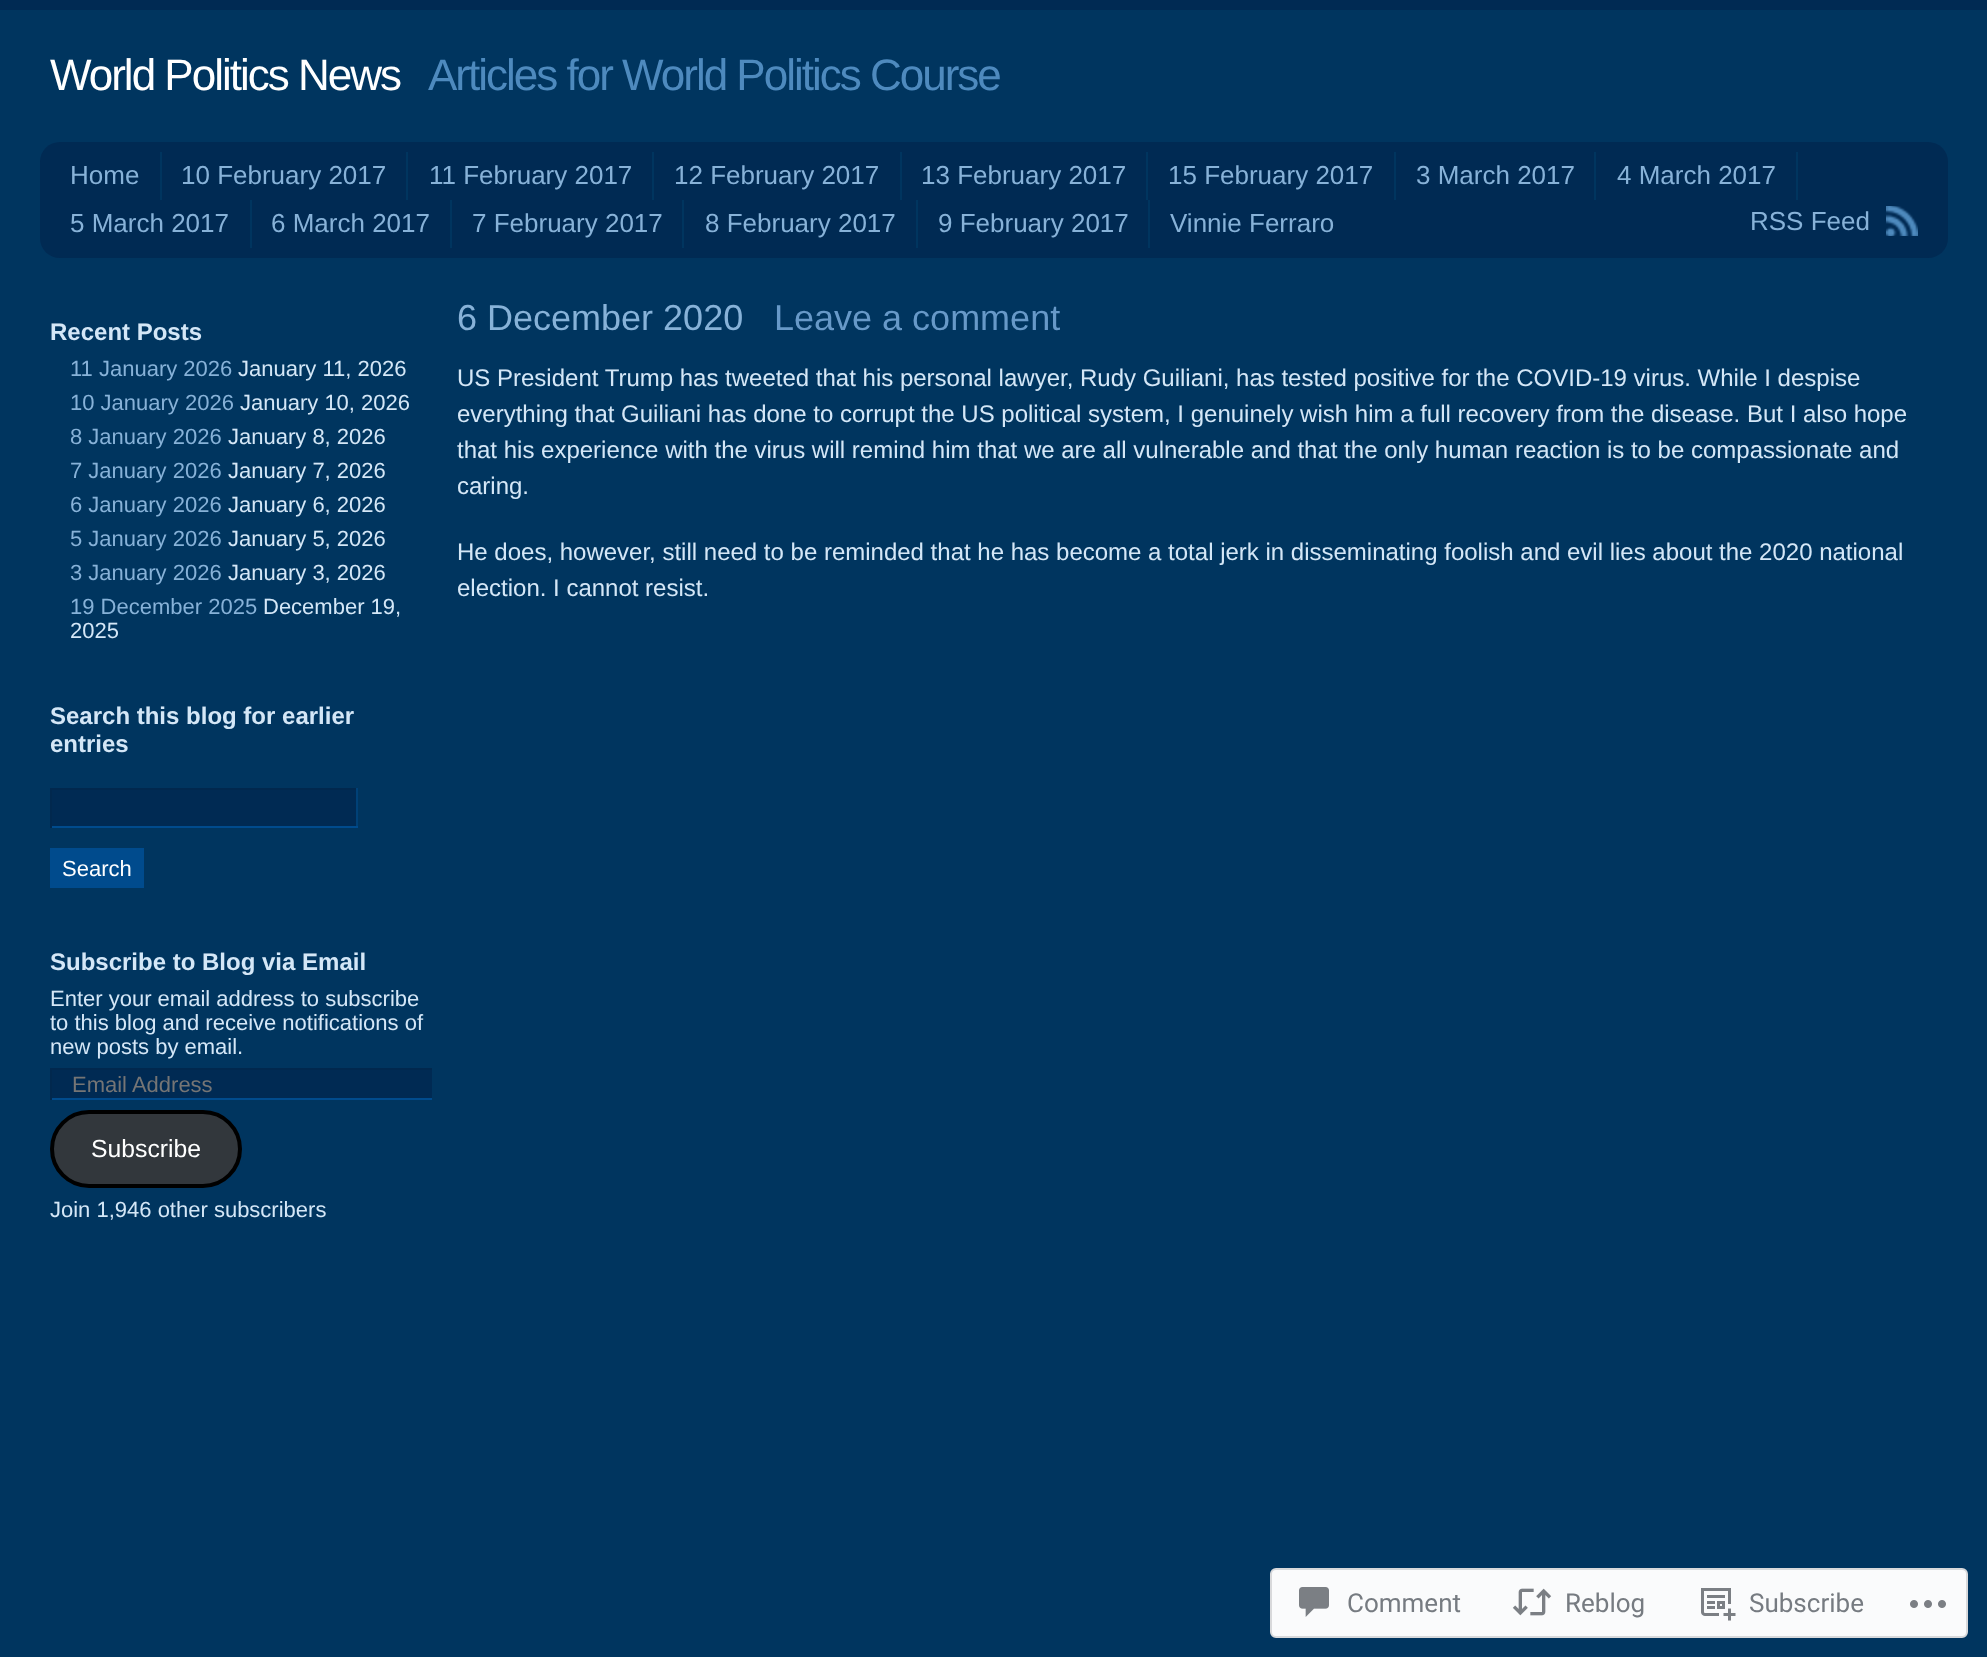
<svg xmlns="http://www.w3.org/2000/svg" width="1987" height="1657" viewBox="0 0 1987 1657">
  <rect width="100%" height="100%" fill="rgb(0,53,95)"/>
  <rect x="0" y="0" width="1987" height="10" fill="rgb(0,42,83)"/>
  <text x="50" y="90" font-family="Liberation Sans" font-size="44" letter-spacing="-2" fill="rgb(255,255,255)">World Politics News</text>
  <text x="428" y="90" font-family="Liberation Sans" font-size="44" letter-spacing="-2" fill="rgb(78,138,190)">Articles for World Politics Course</text>
  <rect x="40" y="142" width="1908" height="116" rx="20" fill="rgb(0,42,83)"/>
  <rect x="160" y="152" width="2" height="48" fill="rgb(0,53,95)"/>
  <text x="70" y="184" font-family="Liberation Sans" font-size="26" fill="rgb(135,178,216)">Home</text>
  <rect x="406" y="152" width="2" height="48" fill="rgb(0,53,95)"/>
  <text x="181" y="184" font-family="Liberation Sans" font-size="26" fill="rgb(135,178,216)">10 February 2017</text>
  <rect x="652" y="152" width="2" height="48" fill="rgb(0,53,95)"/>
  <text x="429" y="184" font-family="Liberation Sans" font-size="26" fill="rgb(135,178,216)">11 February 2017</text>
  <rect x="900" y="152" width="2" height="48" fill="rgb(0,53,95)"/>
  <text x="674" y="184" font-family="Liberation Sans" font-size="26" fill="rgb(135,178,216)">12 February 2017</text>
  <rect x="1146" y="152" width="2" height="48" fill="rgb(0,53,95)"/>
  <text x="921" y="184" font-family="Liberation Sans" font-size="26" fill="rgb(135,178,216)">13 February 2017</text>
  <rect x="1394" y="152" width="2" height="48" fill="rgb(0,53,95)"/>
  <text x="1168" y="184" font-family="Liberation Sans" font-size="26" fill="rgb(135,178,216)">15 February 2017</text>
  <rect x="1594" y="152" width="2" height="48" fill="rgb(0,53,95)"/>
  <text x="1416" y="184" font-family="Liberation Sans" font-size="26" fill="rgb(135,178,216)">3 March 2017</text>
  <rect x="1796" y="152" width="2" height="48" fill="rgb(0,53,95)"/>
  <text x="1617" y="184" font-family="Liberation Sans" font-size="26" fill="rgb(135,178,216)">4 March 2017</text>
  <rect x="250" y="200" width="2" height="48" fill="rgb(0,53,95)"/>
  <text x="70" y="232" font-family="Liberation Sans" font-size="26" fill="rgb(135,178,216)">5 March 2017</text>
  <rect x="450" y="200" width="2" height="48" fill="rgb(0,53,95)"/>
  <text x="271" y="232" font-family="Liberation Sans" font-size="26" fill="rgb(135,178,216)">6 March 2017</text>
  <rect x="682" y="200" width="2" height="48" fill="rgb(0,53,95)"/>
  <text x="472" y="232" font-family="Liberation Sans" font-size="26" fill="rgb(135,178,216)">7 February 2017</text>
  <rect x="916" y="200" width="2" height="48" fill="rgb(0,53,95)"/>
  <text x="705" y="232" font-family="Liberation Sans" font-size="26" fill="rgb(135,178,216)">8 February 2017</text>
  <rect x="1148" y="200" width="2" height="48" fill="rgb(0,53,95)"/>
  <g font-family="Liberation Sans" font-size="26" fill="rgb(135,178,216)">
    <text x="938" y="232">9 February 2017</text>
    <text x="1170" y="232">Vinnie Ferraro</text>
    <text x="1750" y="230">RSS Feed</text>
  </g>
  <image x="1886" y="206" width="32" height="30" href="pic1.png"/>
  <text x="50" y="340" font-family="Liberation Sans" font-size="24" font-weight="bold" fill="rgb(212,231,247)">Recent Posts</text>
  <text x="70" y="376" font-family="Liberation Sans" font-size="22" fill="rgb(135,178,216)">11 January 2026</text>
  <text x="238" y="376" font-family="Liberation Sans" font-size="22" fill="rgb(212,231,247)">January 11, 2026</text>
  <text x="70" y="410" font-family="Liberation Sans" font-size="22" fill="rgb(135,178,216)">10 January 2026</text>
  <text x="240" y="410" font-family="Liberation Sans" font-size="22" fill="rgb(212,231,247)">January 10, 2026</text>
  <text x="70" y="444" font-family="Liberation Sans" font-size="22" fill="rgb(135,178,216)">8 January 2026</text>
  <text x="228" y="444" font-family="Liberation Sans" font-size="22" fill="rgb(212,231,247)">January 8, 2026</text>
  <text x="70" y="478" font-family="Liberation Sans" font-size="22" fill="rgb(135,178,216)">7 January 2026</text>
  <text x="228" y="478" font-family="Liberation Sans" font-size="22" fill="rgb(212,231,247)">January 7, 2026</text>
  <text x="70" y="512" font-family="Liberation Sans" font-size="22" fill="rgb(135,178,216)">6 January 2026</text>
  <text x="228" y="512" font-family="Liberation Sans" font-size="22" fill="rgb(212,231,247)">January 6, 2026</text>
  <text x="70" y="546" font-family="Liberation Sans" font-size="22" fill="rgb(135,178,216)">5 January 2026</text>
  <text x="228" y="546" font-family="Liberation Sans" font-size="22" fill="rgb(212,231,247)">January 5, 2026</text>
  <text x="70" y="580" font-family="Liberation Sans" font-size="22" fill="rgb(135,178,216)">3 January 2026</text>
  <text x="228" y="580" font-family="Liberation Sans" font-size="22" fill="rgb(212,231,247)">January 3, 2026</text>
  <text x="70" y="614" font-family="Liberation Sans" font-size="22" fill="rgb(135,178,216)">19 December 2025</text>
  <g font-family="Liberation Sans" font-size="22" fill="rgb(212,231,247)">
    <text x="263" y="614">December 19,</text>
    <text x="70" y="638">2025</text>
  </g>
  <g font-family="Liberation Sans" font-size="24" font-weight="bold" fill="rgb(212,231,247)">
    <text>
      <tspan x="50" y="724">Search this blog for earlier</tspan>
      <tspan x="50" y="752">entries</tspan>
    </text>
  </g>
  <rect x="52" y="790" width="304" height="36" fill="rgb(0,42,83)"/>
  <rect x="50" y="788" width="308" height="2" fill="rgb(1,40,78)"/>
  <rect x="356" y="788" width="2" height="40" fill="rgb(0,65,119)"/>
  <rect x="50" y="826" width="308" height="2" fill="rgb(0,75,141)"/>
  <rect x="50" y="788" width="2" height="40" fill="rgb(1,40,78)"/>
  <rect x="50" y="848" width="94" height="40" fill="rgb(0,75,141)"/>
  <text x="62" y="876" font-family="Liberation Sans" font-size="22" fill="rgb(255,255,255)">Search</text>
  <text x="50" y="970" font-family="Liberation Sans" font-size="24" font-weight="bold" fill="rgb(212,231,247)">Subscribe to Blog via Email</text>
  <g font-family="Liberation Sans" font-size="22" fill="rgb(212,231,247)">
    <text>
      <tspan x="50" y="1006">Enter your email address to subscribe</tspan>
      <tspan x="50" y="1030">to this blog and receive notifications of</tspan>
      <tspan x="50" y="1054">new posts by email.</tspan>
    </text>
  </g>
  <rect x="52" y="1070" width="380" height="28" fill="rgb(0,42,83)"/>
  <rect x="50" y="1068" width="382" height="2" fill="rgb(1,40,78)"/>
  <rect x="50" y="1098" width="382" height="2" fill="rgb(0,75,141)"/>
  <rect x="50" y="1068" width="2" height="32" fill="rgb(1,40,78)"/>
  <text x="72" y="1092" font-family="Liberation Sans" font-size="22" fill="rgb(117,117,117)">Email Address</text>
  <rect x="52" y="1112" width="188" height="74" rx="37" fill="rgb(50,55,60)" stroke="rgb(0,0,0)" stroke-width="4"/>
  <text x="91" y="1157" font-family="Liberation Sans" font-size="24.75" fill="rgb(255,255,255)">Subscribe</text>
  <text x="50" y="1217" font-family="Liberation Sans" font-size="22" fill="rgb(212,231,247)">Join 1,946 other subscribers</text>
  <text x="457" y="330" font-family="Liberation Sans" font-size="36" fill="rgb(135,178,216)">6 December 2020</text>
  <text x="774" y="330" font-family="Liberation Sans" font-size="36" fill="rgb(103,153,200)">Leave a comment</text>
  <g font-family="Liberation Sans" font-size="24" fill="rgb(212,231,247)">
    <text>
      <tspan x="457" y="386">US President Trump has tweeted that his personal lawyer, Rudy Guiliani, has tested positive for the COVID-19 virus. While I despise</tspan>
      <tspan x="457" y="422">everything that Guiliani has done to corrupt the US political system, I genuinely wish him a full recovery from the disease. But I also hope</tspan>
      <tspan x="457" y="458">that his experience with the virus will remind him that we are all vulnerable and that the only human reaction is to be compassionate and</tspan>
      <tspan x="457" y="494">caring.</tspan>
    </text>
    <text>
      <tspan x="457" y="560">He does, however, still need to be reminded that he has become a total jerk in disseminating foolish and evil lies about the 2020 national</tspan>
      <tspan x="457" y="596">election. I cannot resist.</tspan>
    </text>
  </g>
  <rect x="1271" y="1569" width="696" height="68" rx="5" fill="rgb(250,251,252)" stroke="rgb(216,217,219)" stroke-width="2"/>
  <image x="1299" y="1587" width="30" height="30" href="pic2.png"/>
  <text x="1347" y="1612" font-family="Roboto" font-size="26" fill="rgb(118,123,129)">Comment</text>
  <image x="1512" y="1588" width="40" height="28" href="pic3.png"/>
  <text x="1565" y="1612" font-family="Roboto" font-size="26" fill="rgb(118,123,129)">Reblog</text>
  <image x="1701" y="1588" width="35" height="33" href="pic4.png"/>
  <text x="1749" y="1612" font-family="Roboto" font-size="26" fill="rgb(118,123,129)">Subscribe</text>
  <image x="1910" y="1600" width="36" height="8" href="pic5.png"/>
</svg>
